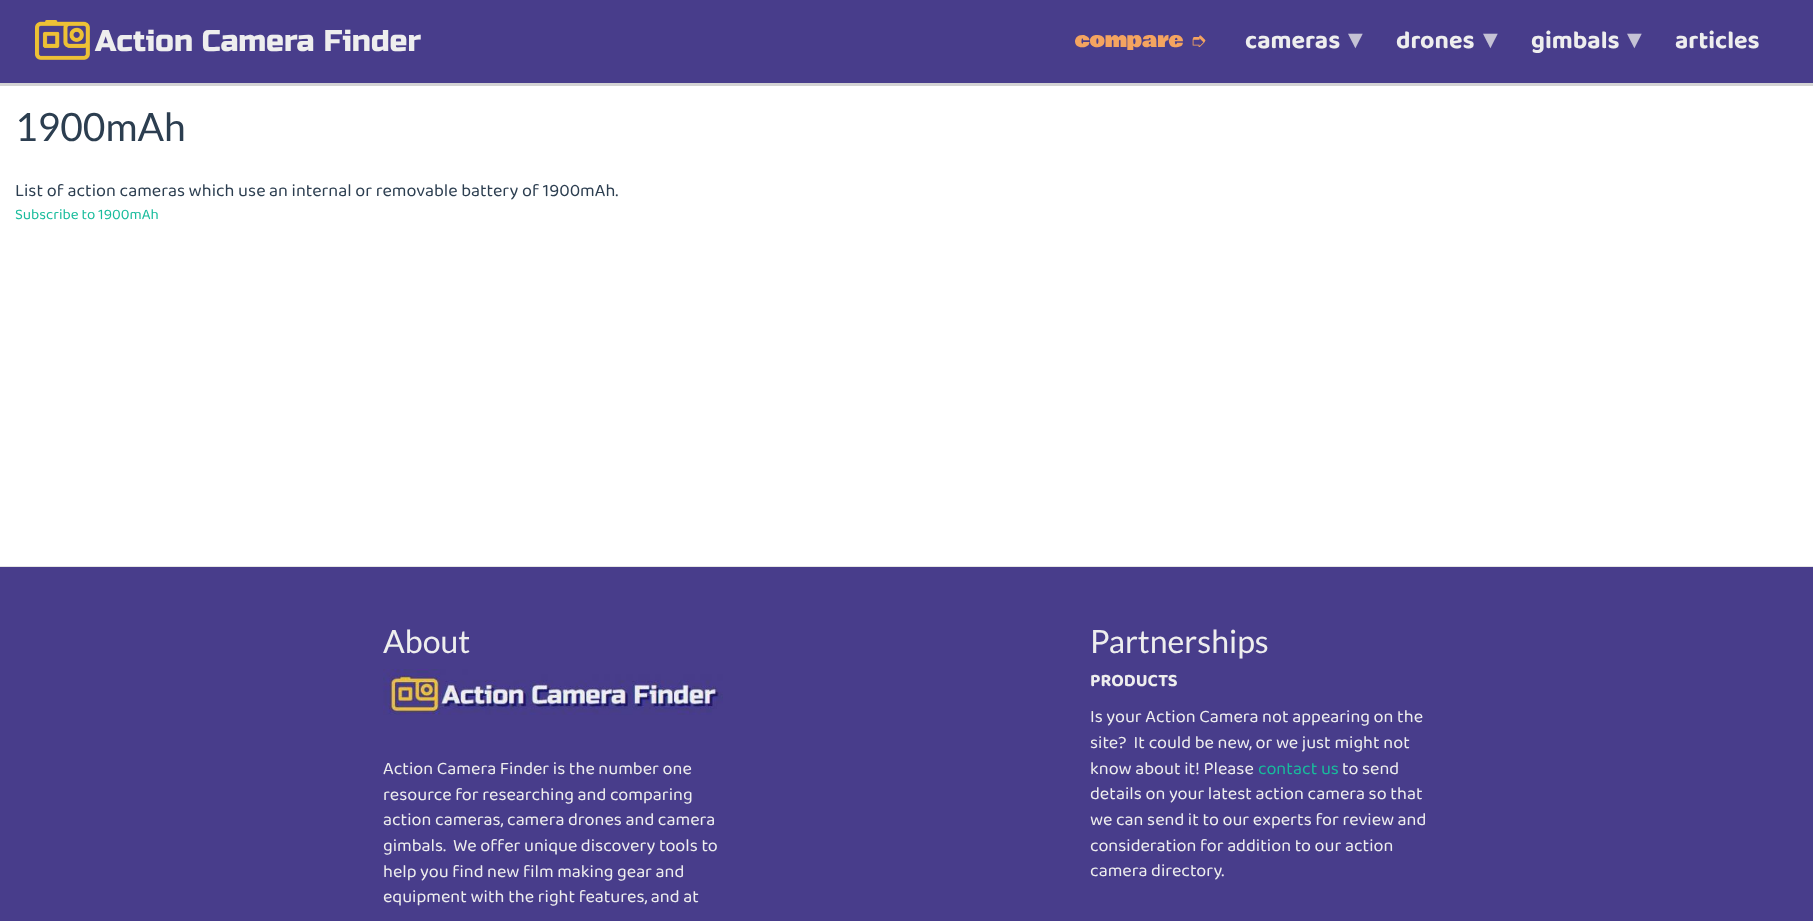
<svg xmlns="http://www.w3.org/2000/svg" width="1813" height="921" viewBox="0 0 1813 921">
  <rect width="100%" height="100%" fill="rgb(255,255,255)"/>
  <rect x="0" y="83" width="1813" height="3" fill="rgb(211,211,211)"/>
  <rect x="0" y="0" width="1813" height="83" fill="rgb(72,61,139)"/>
  <image x="35" y="20" width="55" height="40" href="pic1.png"/>
  <text x="95" y="51" font-family="Russo One" font-size="30" fill="rgb(238,238,238)">Action Camera Finder</text>
  <text x="1075" y="47" font-family="Bowlby One" font-size="20" fill="rgb(244,164,96)">compare</text>
  <text x="1190" y="47" font-family="DejaVu Sans" font-size="20" fill="rgb(244,164,96)">➮</text>
  <text x="1245" y="48" font-family="'Baloo 2'" font-size="25" font-weight="bold" fill="rgb(238,238,238)">cameras</text>
  <text x="1343" y="48" font-family="Liberation Serif" font-size="25" font-weight="bold" fill="rgb(197,194,213)">▼</text>
  <text x="1396" y="48" font-family="'Baloo 2'" font-size="25" font-weight="bold" fill="rgb(238,238,238)">drones</text>
  <text x="1478" y="48" font-family="Liberation Serif" font-size="25" font-weight="bold" fill="rgb(197,194,213)">▼</text>
  <text x="1531" y="48" font-family="'Baloo 2'" font-size="25" font-weight="bold" fill="rgb(238,238,238)">gimbals</text>
  <text x="1622" y="48" font-family="Liberation Serif" font-size="25" font-weight="bold" fill="rgb(197,194,213)">▼</text>
  <text x="1675" y="48" font-family="'Baloo 2'" font-size="25" font-weight="bold" fill="rgb(238,238,238)">articles</text>
  <text x="15" y="141" font-family="Lato" font-size="39" fill="rgb(44,62,80)">1900mAh</text>
  <text x="15" y="196" font-family="'Baloo 2'" font-size="18" fill="rgb(44,62,80)">List of action cameras which use an internal or removable battery of 1900mAh.</text>
  <text x="15" y="219" font-family="'Baloo 2'" font-size="15" fill="rgb(24,188,156)">Subscribe to 1900mAh</text>
  <rect x="0" y="567" width="1813" height="354" fill="rgb(72,61,139)"/>
  <rect x="0" y="566" width="1813" height="1" fill="rgb(229,229,229)"/>
  <text x="383" y="653" font-family="Lato" font-size="32" fill="rgb(238,238,238)">About</text>
  <image x="383" y="669" width="340" height="46" href="pic2.png"/>
  <g font-family="'Baloo 2'" font-size="18" fill="rgb(238,238,238)">
    <text xml:space="preserve"><tspan x="383" y="774">Action Camera Finder is the number one</tspan><tspan x="383" y="800">resource for researching and comparing</tspan><tspan x="383" y="825">action cameras, camera drones and camera</tspan><tspan x="383" y="851">gimbals.  We offer unique discovery tools to</tspan><tspan x="383" y="877">help you find new film making gear and</tspan><tspan x="383" y="902">equipment with the right features, and at</tspan></text>
  </g>
  <text x="1090" y="653" font-family="Lato" font-size="32" fill="rgb(238,238,238)">Partnerships</text>
  <text x="1090" y="686" font-family="'Baloo 2'" font-size="18" font-weight="bold" fill="rgb(238,238,238)">PRODUCTS</text>
  <g font-family="'Baloo 2'" font-size="18" fill="rgb(238,238,238)">
    <text xml:space="preserve"><tspan x="1090" y="722">Is your Action Camera not appearing on the</tspan><tspan x="1090" y="748">site?  It could be new, or we just might not</tspan><tspan x="1090" y="774">know about it! Please</tspan></text>
  </g>
  <text x="1258" y="774" font-family="'Baloo 2'" font-size="18" fill="rgb(24,188,156)">contact us</text>
  <g font-family="'Baloo 2'" font-size="18" fill="rgb(238,238,238)">
    <text x="1342" y="774">to send</text>
    <text>
      <tspan x="1090" y="799">details on your latest action camera so that</tspan>
      <tspan x="1090" y="825">we can send it to our experts for review and</tspan>
      <tspan x="1090" y="851">consideration for addition to our action</tspan>
      <tspan x="1090" y="876">camera directory.</tspan>
    </text>
  </g>
</svg>
